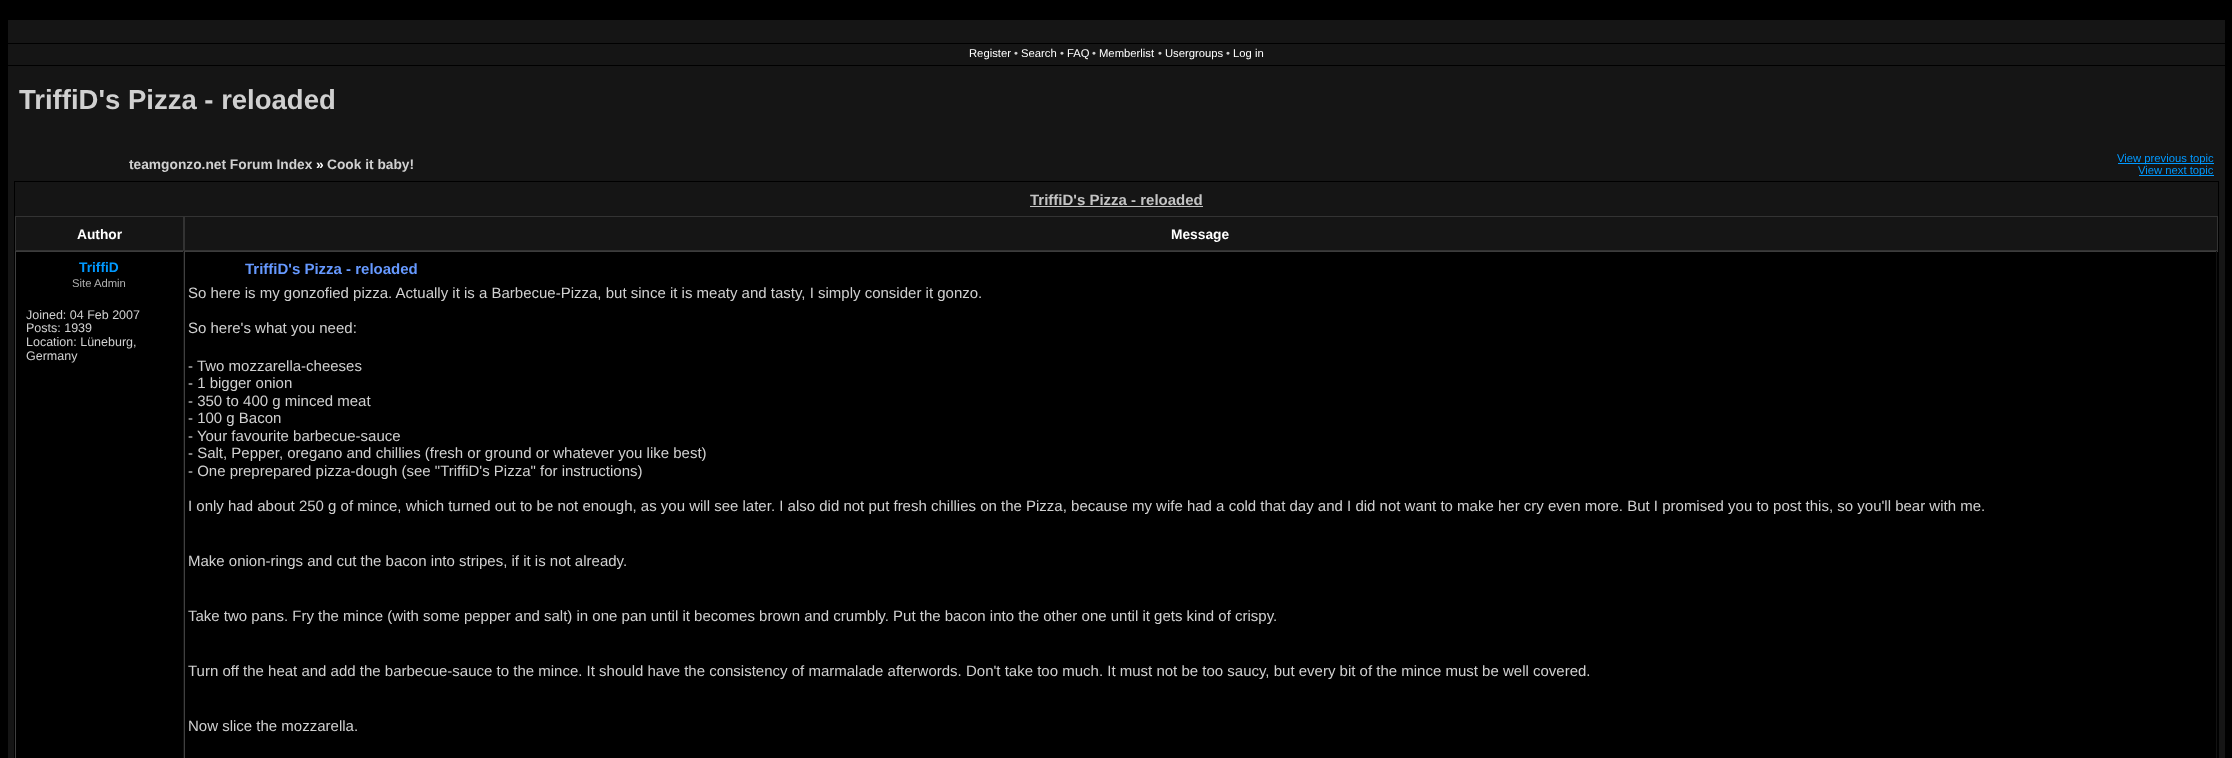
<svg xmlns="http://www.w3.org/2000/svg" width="2232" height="758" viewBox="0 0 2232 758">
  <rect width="100%" height="100%" fill="rgb(0,0,0)"/>
  <rect x="8" y="20" width="2217" height="738" fill="rgb(21,21,21)"/>
  <rect x="8" y="43" width="2217" height="1" fill="rgb(0,0,0)"/>
  <rect x="8" y="65" width="2217" height="1" fill="rgb(0,0,0)"/>
  <text x="969" y="57" font-family="Liberation Sans" font-size="11.25" fill="rgb(255,255,255)">Register</text>
  <text x="1014" y="57" font-family="Liberation Sans" font-size="11.25" fill="rgb(208,208,208)">•</text>
  <text x="1021" y="57" font-family="Liberation Sans" font-size="11.25" fill="rgb(255,255,255)">Search</text>
  <text x="1060" y="57" font-family="Liberation Sans" font-size="11.25" fill="rgb(208,208,208)">•</text>
  <text x="1067" y="57" font-family="Liberation Sans" font-size="11.25" fill="rgb(255,255,255)">FAQ</text>
  <text x="1092" y="57" font-family="Liberation Sans" font-size="11.25" fill="rgb(208,208,208)">•</text>
  <text x="1099" y="57" font-family="Liberation Sans" font-size="11.25" fill="rgb(255,255,255)">Memberlist</text>
  <text x="1158" y="57" font-family="Liberation Sans" font-size="11.25" fill="rgb(208,208,208)">•</text>
  <text x="1165" y="57" font-family="Liberation Sans" font-size="11.25" fill="rgb(255,255,255)">Usergroups</text>
  <text x="1226" y="57" font-family="Liberation Sans" font-size="11.25" fill="rgb(208,208,208)">•</text>
  <text x="1233" y="57" font-family="Liberation Sans" font-size="11.25" fill="rgb(255,255,255)">Log in</text>
  <text x="19" y="109" font-family="Liberation Sans" font-size="27.5" font-weight="bold" fill="rgb(208,208,208)">TriffiD's Pizza - reloaded</text>
  <text x="129" y="169" font-family="Liberation Sans" font-size="13.75" font-weight="bold" fill="rgb(208,208,208)">teamgonzo.net Forum Index</text>
  <text x="316" y="169" font-family="Liberation Sans" font-size="13.75" font-weight="bold" fill="rgb(255,255,255)">»</text>
  <text x="327" y="169" font-family="Liberation Sans" font-size="13.75" font-weight="bold" fill="rgb(208,208,208)">Cook it baby!</text>
  <rect x="2118" y="163" width="96" height="1" fill="rgb(0,153,255)"/>
  <text x="2117" y="162" font-family="Liberation Sans" font-size="11.25" fill="rgb(0,153,255)">View previous topic</text>
  <rect x="2139" y="175" width="75" height="1" fill="rgb(0,153,255)"/>
  <text x="2138" y="174" font-family="Liberation Sans" font-size="11.25" fill="rgb(0,153,255)">View next topic</text>
  <rect x="14.5" y="181.5" width="2204" height="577" fill="none" stroke="rgb(0,0,0)"/>
  <text x="1030" y="205" font-family="Liberation Sans" font-size="15" font-weight="bold" fill="rgb(196,196,196)">TriffiD's Pizza - reloaded</text>
  <rect x="1030" y="206" width="173" height="1" fill="rgb(196,196,196)"/>
  <rect x="15.5" y="216.5" width="168" height="34" fill="none" stroke="rgb(51,51,51)"/>
  <text x="77" y="239" font-family="Liberation Sans" font-size="13.75" font-weight="bold" fill="rgb(255,255,255)">Author</text>
  <rect x="184.5" y="216.5" width="2033" height="34" fill="none" stroke="rgb(51,51,51)"/>
  <text x="1171" y="239" font-family="Liberation Sans" font-size="13.75" font-weight="bold" fill="rgb(255,255,255)">Message</text>
  <rect x="16" y="252" width="167" height="506" fill="rgb(0,0,0)"/>
  <rect x="15" y="251" width="2203" height="1" fill="rgb(60,60,60)"/>
  <rect x="183" y="251" width="1" height="507" fill="rgb(18,18,18)"/>
  <rect x="15" y="251" width="1" height="507" fill="rgb(64,64,64)"/>
  <text x="79" y="272" font-family="Liberation Sans" font-size="13.75" font-weight="bold" fill="rgb(0,153,255)">TriffiD</text>
  <text x="72" y="287" font-family="Liberation Sans" font-size="11.25" fill="rgb(176,176,176)">Site Admin</text>
  <g font-family="Liberation Sans" font-size="12.5" fill="rgb(208,208,208)">
    <text>
      <tspan x="26" y="319">Joined: 04 Feb 2007</tspan>
      <tspan x="26" y="332">Posts: 1939</tspan>
      <tspan x="26" y="346">Location: Lüneburg,</tspan>
      <tspan x="26" y="360">Germany</tspan>
    </text>
  </g>
  <rect x="185" y="252" width="2033" height="506" fill="rgb(0,0,0)"/>
  <rect x="2216" y="251" width="1" height="507" fill="rgb(18,18,18)"/>
  <rect x="184" y="251" width="1" height="507" fill="rgb(64,64,64)"/>
  <text x="245" y="274" font-family="Liberation Sans" font-size="15" font-weight="bold" fill="rgb(102,153,255)">TriffiD's Pizza - reloaded</text>
  <g font-family="Liberation Sans" font-size="15" fill="rgb(208,208,208)">
    <text x="188" y="298">So here is my gonzofied pizza. Actually it is a Barbecue-Pizza, but since it is meaty and tasty, I simply consider it gonzo.</text>
    <text x="188" y="333">So here's what you need:</text>
    <text>
      <tspan x="188" y="371">- Two mozzarella-cheeses</tspan>
      <tspan x="188" y="388">- 1 bigger onion</tspan>
      <tspan x="188" y="406">- 350 to 400 g minced meat</tspan>
      <tspan x="188" y="423">- 100 g Bacon</tspan>
      <tspan x="188" y="441">- Your favourite barbecue-sauce</tspan>
      <tspan x="188" y="458">- Salt, Pepper, oregano and chillies (fresh or ground or whatever you like best)</tspan>
      <tspan x="188" y="476">- One preprepared pizza-dough (see "TriffiD's Pizza" for instructions)</tspan>
    </text>
    <text x="188" y="511">I only had about 250 g of mince, which turned out to be not enough, as you will see later. I also did not put fresh chillies on the Pizza, because my wife had a cold that day and I did not want to make her cry even more. But I promised you to post this, so you'll bear with me.</text>
    <text x="188" y="566">Make onion-rings and cut the bacon into stripes, if it is not already.</text>
    <text x="188" y="621">Take two pans. Fry the mince (with some pepper and salt) in one pan until it becomes brown and crumbly. Put the bacon into the other one until it gets kind of crispy.</text>
    <text x="188" y="676">Turn off the heat and add the barbecue-sauce to the mince. It should have the consistency of marmalade afterwords. Don't take too much. It must not be too saucy, but every bit of the mince must be well covered.</text>
    <text x="188" y="731">Now slice the mozzarella.</text>
  </g>
</svg>
